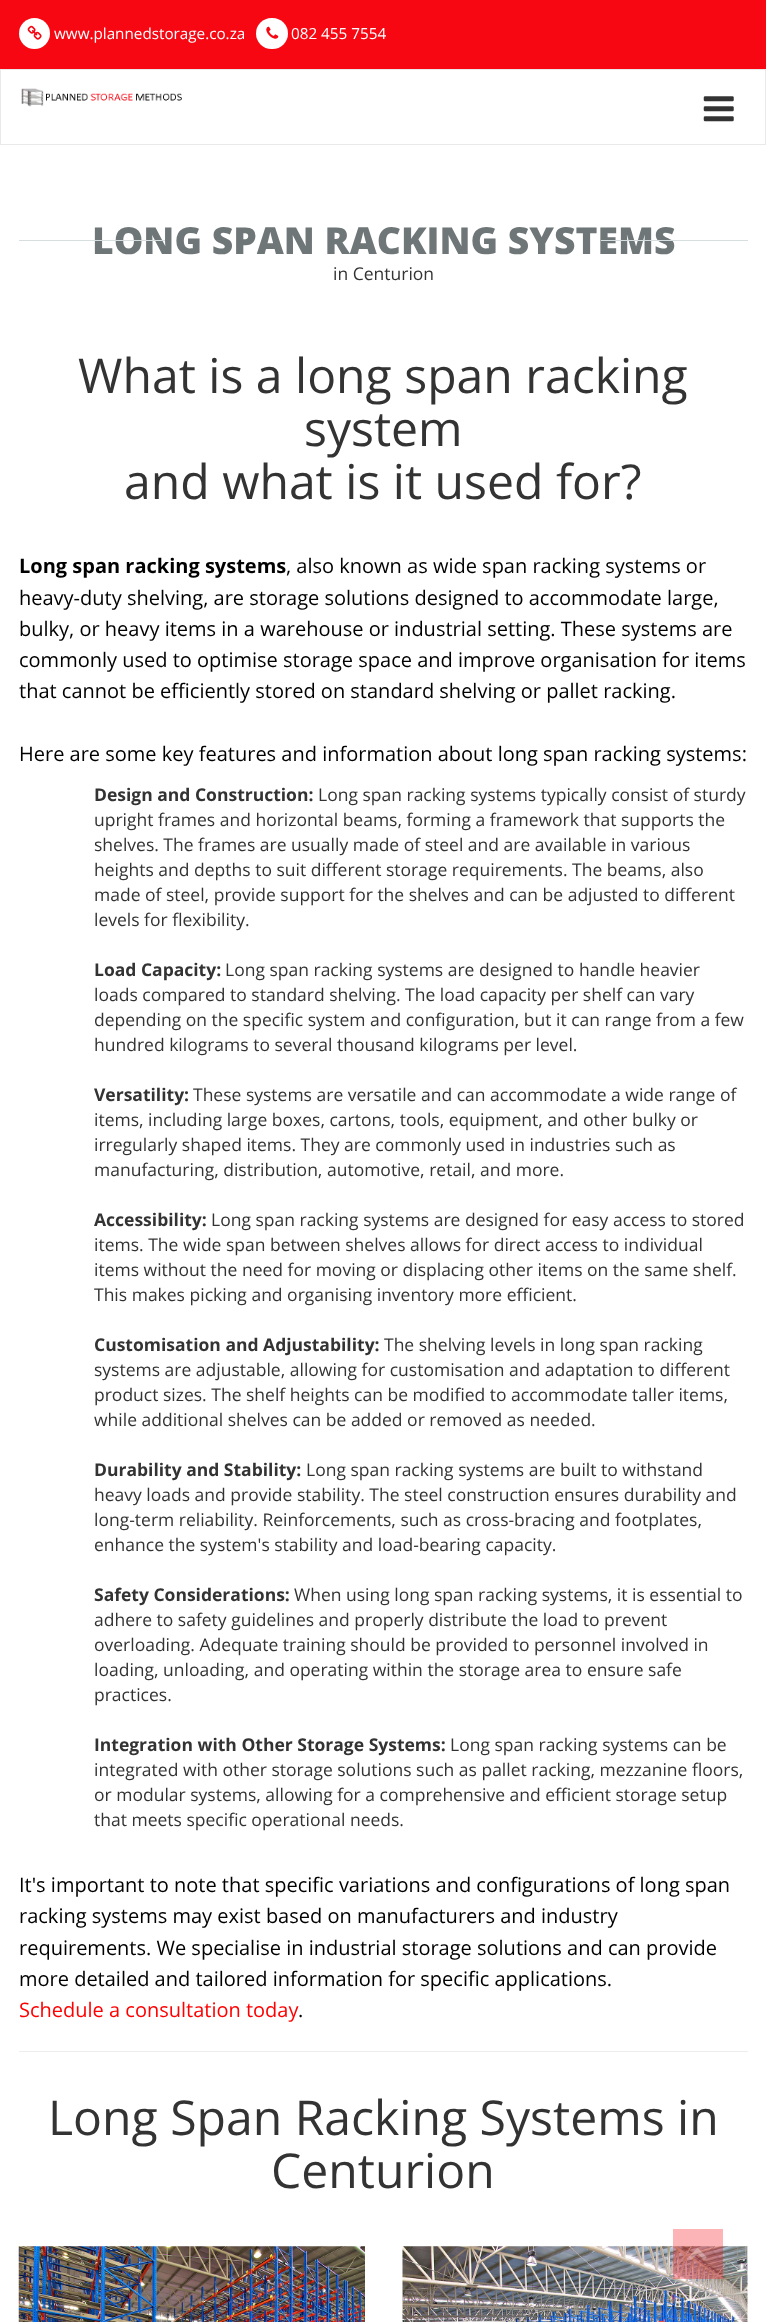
<svg xmlns="http://www.w3.org/2000/svg" width="766" height="2322" viewBox="0 0 766 2322">
  <rect width="100%" height="100%" fill="rgb(255,255,255)"/>
  <rect x="0" y="0" width="766" height="69" fill="rgb(247,7,18)"/>
  <circle cx="34.5" cy="33.5" r="15.5" fill="rgb(255,255,255)"/>
  <image x="27" y="25" width="15" height="15" href="pic1.png"/>
  <text x="54" y="39" font-family="Open Sans" font-size="15.25" fill="rgb(255,255,255)">www.plannedstorage.co.za</text>
  <rect x="256" y="18" width="32" height="31" rx="15.5" fill="rgb(255,255,255)"/>
  <image x="266" y="26" width="13" height="13" href="pic2.png"/>
  <text x="291" y="39" font-family="Open Sans" font-size="15.25" fill="rgb(255,255,255)">082 455 7554</text>
  <rect x="0.5" y="69.5" width="765" height="75" fill="none" stroke="rgb(233,233,233)"/>
  <image x="21" y="88" width="161" height="19" href="pic3.png"/>
  <image x="703" y="96" width="31" height="26" href="pic4.png"/>
  <text x="92" y="254" font-family="Open Sans" font-size="37.25" font-weight="800" fill="rgb(111,118,120)">LONG SPAN RACKING SYSTEMS</text>
  <rect x="19" y="240" width="146" height="1" fill="rgb(215,222,224)"/>
  <rect x="601" y="240" width="147" height="1" fill="rgb(215,222,224)"/>
  <text x="333" y="280" font-family="Open Sans" font-size="17.5" fill="rgb(51,51,51)">in Centurion</text>
  <g font-family="Open Sans" font-size="48.1" fill="rgb(51,51,51)">
    <text x="78" y="393">What is a long span racking</text>
    <text x="304" y="446">system</text>
    <text x="124" y="499">and what is it used for?</text>
  </g>
  <text x="19" y="573" font-family="Open Sans" font-size="20" font-weight="bold" fill="rgb(0,0,0)">Long span racking systems</text>
  <g font-family="Open Sans" font-size="20" fill="rgb(0,0,0)">
    <text x="286" y="573">, also known as wide span racking systems or</text>
    <text>
      <tspan x="19" y="605">heavy-duty shelving, are storage solutions designed to accommodate large,</tspan>
      <tspan x="19" y="636">bulky, or heavy items in a warehouse or industrial setting. These systems are</tspan>
      <tspan x="19" y="667">commonly used to optimise storage space and improve organisation for items</tspan>
      <tspan x="19" y="698">that cannot be efficiently stored on standard shelving or pallet racking.</tspan>
    </text>
    <text x="19" y="761">Here are some key features and information about long span racking systems:</text>
  </g>
  <text x="94" y="801" font-family="Open Sans" font-size="17.5" font-weight="bold" fill="rgb(51,51,51)">Design and Construction:</text>
  <g font-family="Open Sans" font-size="17.5" fill="rgb(51,51,51)">
    <text x="318" y="801">Long span racking systems typically consist of sturdy</text>
    <text>
      <tspan x="94" y="826">upright frames and horizontal beams, forming a framework that supports the</tspan>
      <tspan x="94" y="851">shelves. The frames are usually made of steel and are available in various</tspan>
      <tspan x="94" y="876">heights and depths to suit different storage requirements. The beams, also</tspan>
      <tspan x="94" y="901">made of steel, provide support for the shelves and can be adjusted to different</tspan>
      <tspan x="94" y="926">levels for flexibility.</tspan>
    </text>
  </g>
  <text x="94" y="976" font-family="Open Sans" font-size="17.5" font-weight="bold" fill="rgb(51,51,51)">Load Capacity:</text>
  <g font-family="Open Sans" font-size="17.5" fill="rgb(51,51,51)">
    <text x="225" y="976">Long span racking systems are designed to handle heavier</text>
    <text>
      <tspan x="94" y="1001">loads compared to standard shelving. The load capacity per shelf can vary</tspan>
      <tspan x="94" y="1026">depending on the specific system and configuration, but it can range from a few</tspan>
      <tspan x="94" y="1051">hundred kilograms to several thousand kilograms per level.</tspan>
    </text>
  </g>
  <text x="94" y="1101" font-family="Open Sans" font-size="17.5" font-weight="bold" fill="rgb(51,51,51)">Versatility:</text>
  <g font-family="Open Sans" font-size="17.5" fill="rgb(51,51,51)">
    <text x="193" y="1101">These systems are versatile and can accommodate a wide range of</text>
    <text>
      <tspan x="94" y="1126">items, including large boxes, cartons, tools, equipment, and other bulky or</tspan>
      <tspan x="94" y="1151">irregularly shaped items. They are commonly used in industries such as</tspan>
      <tspan x="94" y="1176">manufacturing, distribution, automotive, retail, and more.</tspan>
    </text>
  </g>
  <text x="94" y="1226" font-family="Open Sans" font-size="17.5" font-weight="bold" fill="rgb(51,51,51)">Accessibility:</text>
  <g font-family="Open Sans" font-size="17.5" fill="rgb(51,51,51)">
    <text x="211" y="1226">Long span racking systems are designed for easy access to stored</text>
    <text>
      <tspan x="94" y="1251">items. The wide span between shelves allows for direct access to individual</tspan>
      <tspan x="94" y="1276">items without the need for moving or displacing other items on the same shelf.</tspan>
      <tspan x="94" y="1301">This makes picking and organising inventory more efficient.</tspan>
    </text>
  </g>
  <text x="94" y="1351" font-family="Open Sans" font-size="17.5" font-weight="bold" fill="rgb(51,51,51)">Customisation and Adjustability:</text>
  <g font-family="Open Sans" font-size="17.5" fill="rgb(51,51,51)">
    <text x="384" y="1351">The shelving levels in long span racking</text>
    <text>
      <tspan x="94" y="1376">systems are adjustable, allowing for customisation and adaptation to different</tspan>
      <tspan x="94" y="1401">product sizes. The shelf heights can be modified to accommodate taller items,</tspan>
      <tspan x="94" y="1426">while additional shelves can be added or removed as needed.</tspan>
    </text>
  </g>
  <text x="94" y="1476" font-family="Open Sans" font-size="17.5" font-weight="bold" fill="rgb(51,51,51)">Durability and Stability:</text>
  <g font-family="Open Sans" font-size="17.5" fill="rgb(51,51,51)">
    <text x="306" y="1476">Long span racking systems are built to withstand</text>
    <text>
      <tspan x="94" y="1501">heavy loads and provide stability. The steel construction ensures durability and</tspan>
      <tspan x="94" y="1526">long-term reliability. Reinforcements, such as cross-bracing and footplates,</tspan>
      <tspan x="94" y="1551">enhance the system's stability and load-bearing capacity.</tspan>
    </text>
  </g>
  <text x="94" y="1601" font-family="Open Sans" font-size="17.5" font-weight="bold" fill="rgb(51,51,51)">Safety Considerations:</text>
  <g font-family="Open Sans" font-size="17.5" fill="rgb(51,51,51)">
    <text x="294" y="1601">When using long span racking systems, it is essential to</text>
    <text>
      <tspan x="94" y="1626">adhere to safety guidelines and properly distribute the load to prevent</tspan>
      <tspan x="94" y="1651">overloading. Adequate training should be provided to personnel involved in</tspan>
      <tspan x="94" y="1676">loading, unloading, and operating within the storage area to ensure safe</tspan>
      <tspan x="94" y="1701">practices.</tspan>
    </text>
  </g>
  <text x="94" y="1751" font-family="Open Sans" font-size="17.5" font-weight="bold" fill="rgb(51,51,51)">Integration with Other Storage Systems:</text>
  <g font-family="Open Sans" font-size="17.5" fill="rgb(51,51,51)">
    <text x="450" y="1751">Long span racking systems can be</text>
    <text>
      <tspan x="94" y="1776">integrated with other storage solutions such as pallet racking, mezzanine floors,</tspan>
      <tspan x="94" y="1801">or modular systems, allowing for a comprehensive and efficient storage setup</tspan>
      <tspan x="94" y="1826">that meets specific operational needs.</tspan>
    </text>
  </g>
  <g font-family="Open Sans" font-size="20" fill="rgb(0,0,0)">
    <text>
      <tspan x="19" y="1892">It's important to note that specific variations and configurations of long span</tspan>
      <tspan x="19" y="1923">racking systems may exist based on manufacturers and industry</tspan>
      <tspan x="19" y="1955">requirements. We specialise in industrial storage solutions and can provide</tspan>
      <tspan x="19" y="1986">more detailed and tailored information for specific applications.</tspan>
    </text>
  </g>
  <text x="19" y="2017" font-family="Open Sans" font-size="20" fill="rgb(255,0,0)">Schedule a consultation today</text>
  <text x="298" y="2017" font-family="Open Sans" font-size="20" fill="rgb(0,0,0)">.</text>
  <rect x="19" y="2051" width="729" height="1" fill="rgb(238,238,238)"/>
  <g font-family="Open Sans" font-size="48.1" fill="rgb(51,51,51)">
    <text x="48" y="2135">Long Span Racking Systems in</text>
    <text x="271" y="2188">Centurion</text>
  </g>
  <image x="18" y="2246" width="347" height="76" href="pic5.png"/>
  <image x="402" y="2246" width="346" height="76" href="pic6.png"/>
  <rect x="673" y="2229" width="50" height="50" fill="rgba(247,7,18,0.3)"/>
  <image x="688" y="2248" width="19" height="12" href="pic7.png"/>
</svg>
